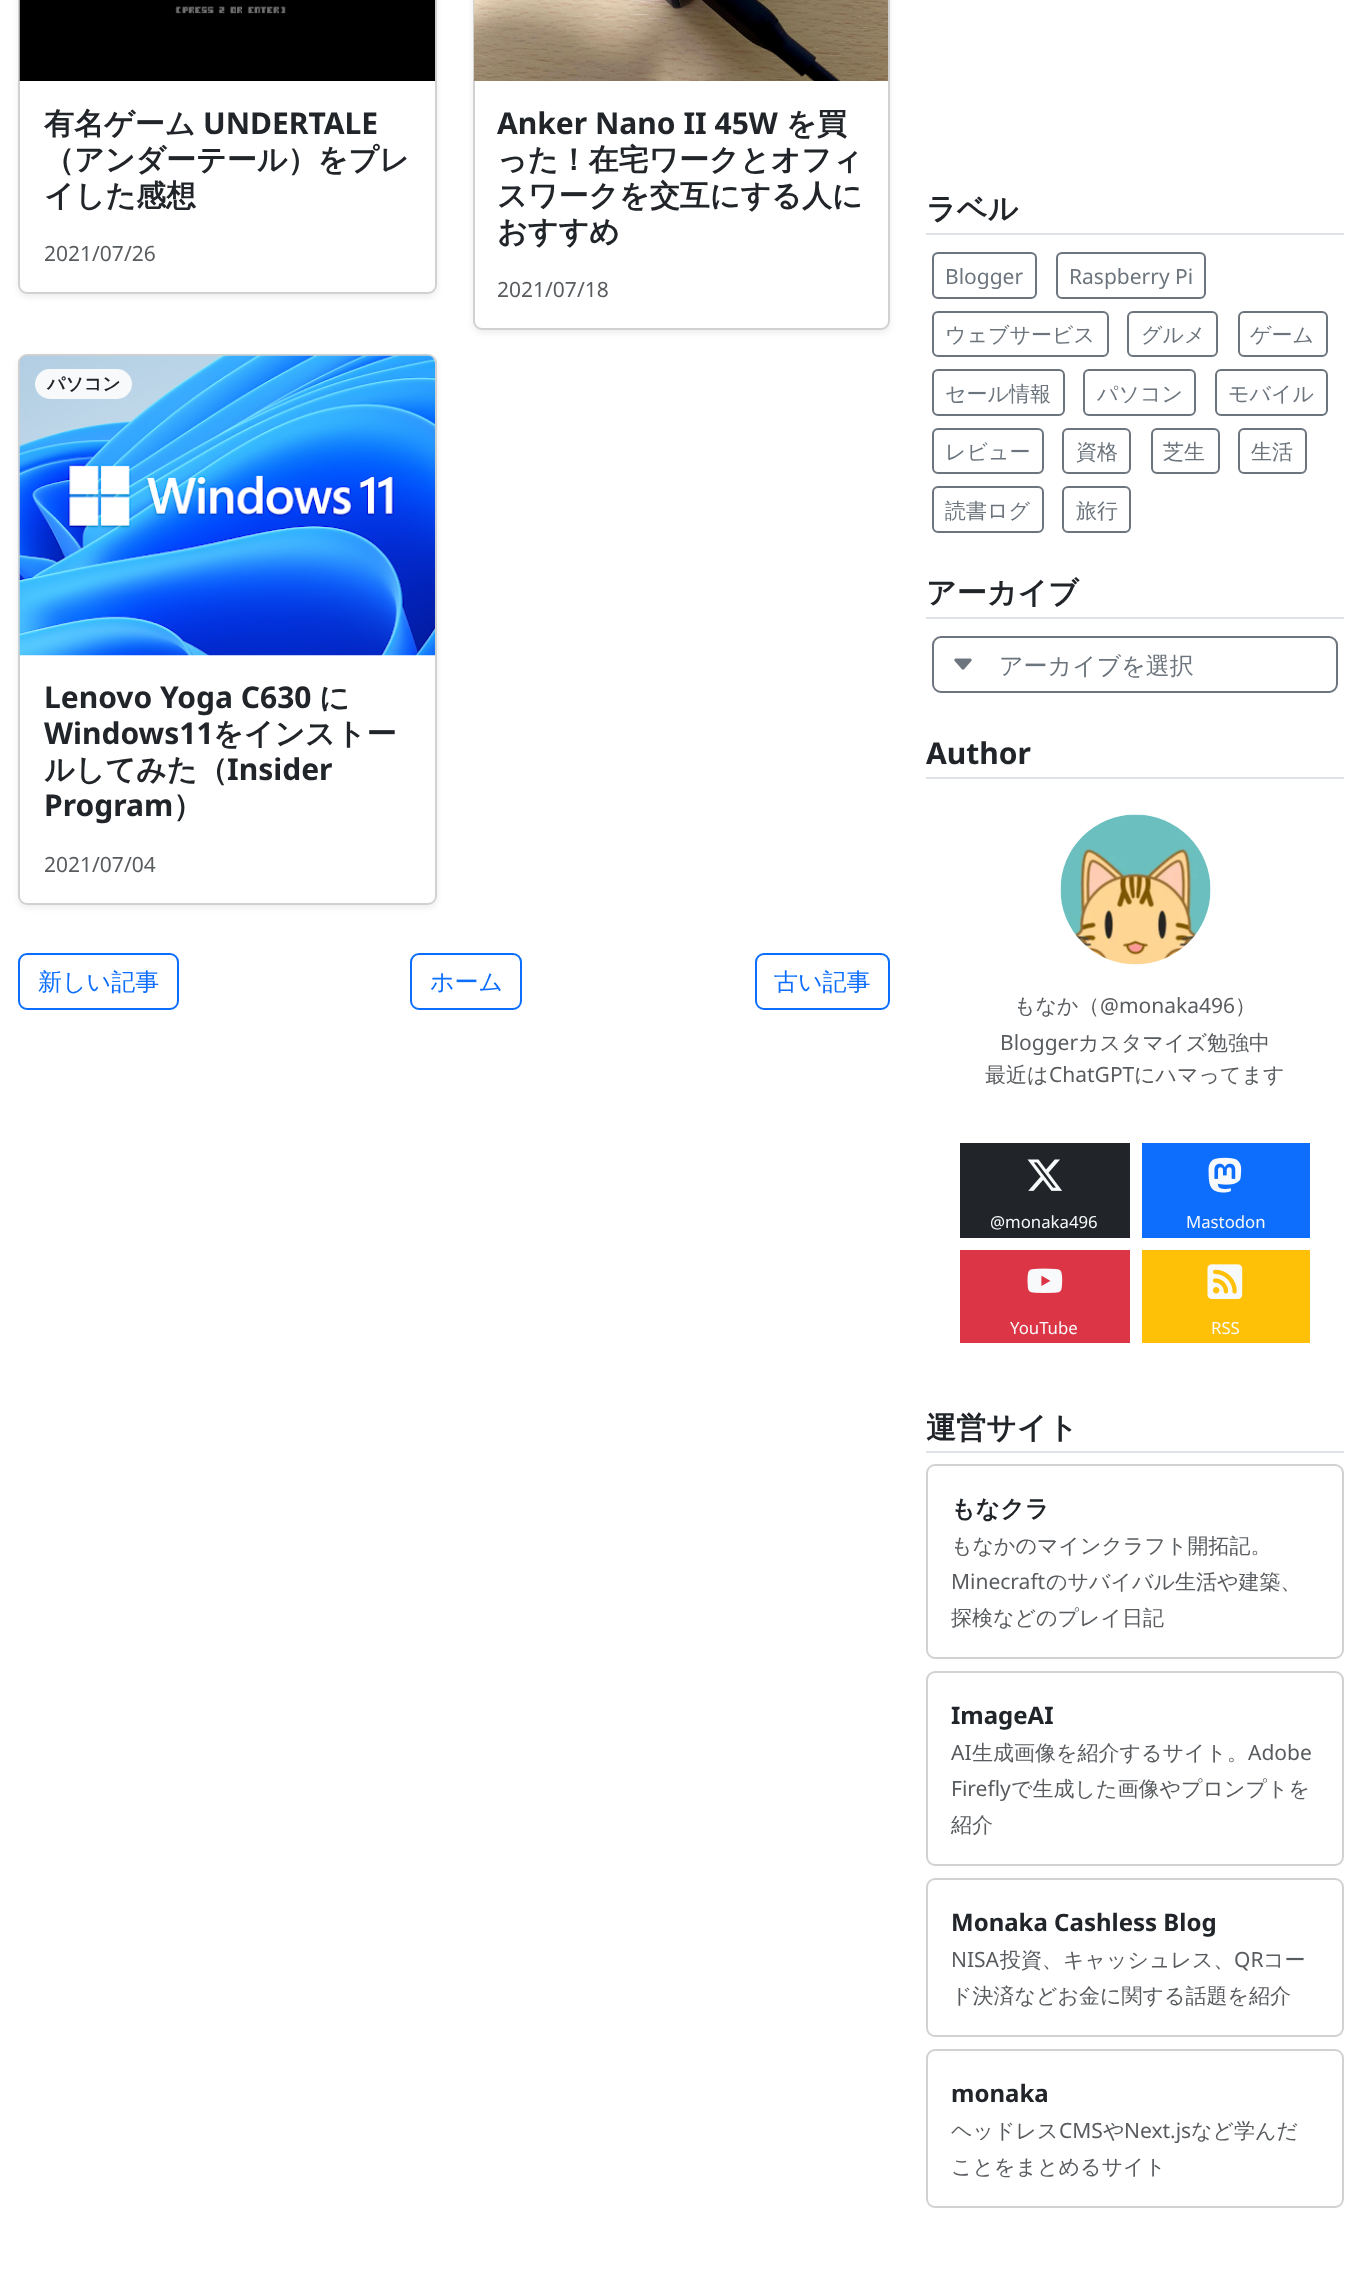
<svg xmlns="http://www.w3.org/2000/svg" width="1362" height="2278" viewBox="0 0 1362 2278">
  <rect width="100%" height="100%" fill="rgb(255,255,255)"/>
  <rect x="18" y="-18" width="419" height="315" rx="9" fill="rgba(0,0,0,0.07)" filter="blur(3px)"/>
  <rect x="18" y="-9" width="419" height="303" rx="9" fill="rgb(255,255,255)"/>
  <rect x="19" y="-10" width="417" height="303" rx="8" fill="none" stroke="rgba(0,0,0,0.18)" stroke-width="2"/>
  <image x="19" y="0" width="416" height="81" href="pic1.png"/>
  <text x="44" y="134" font-family="WenQuanYi Zen Hei" font-size="30" font-weight="bold" fill="rgb(33,37,41)">有名ゲーム</text>
  <text x="203" y="134" font-family="Noto Sans" font-size="30" font-weight="bold" fill="rgb(33,37,41)">UNDERTALE</text>
  <g font-family="WenQuanYi Zen Hei" font-size="30" font-weight="bold" fill="rgb(33,37,41)">
    <text>
      <tspan x="44" y="170">（アンダーテール）をプレ</tspan>
      <tspan x="44" y="206">イした感想</tspan>
    </text>
  </g>
  <text x="44" y="261" font-family="Noto Sans" font-size="21" fill="rgb(89,92,95)">2021/07/26</text>
  <rect x="473" y="-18" width="417" height="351" rx="9" fill="rgba(0,0,0,0.07)" filter="blur(3px)"/>
  <rect x="473" y="-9" width="417" height="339" rx="9" fill="rgb(255,255,255)"/>
  <rect x="474" y="-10" width="415" height="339" rx="8" fill="none" stroke="rgba(0,0,0,0.18)" stroke-width="2"/>
  <image x="474" y="0" width="414" height="81" href="pic2.png"/>
  <text x="497" y="134" font-family="Noto Sans" font-size="30" font-weight="bold" fill="rgb(33,37,41)">Anker Nano II 45W</text>
  <g font-family="WenQuanYi Zen Hei" font-size="30" font-weight="bold" fill="rgb(33,37,41)">
    <text x="786" y="134">を買</text>
    <text>
      <tspan x="497" y="170">った！在宅ワークとオフィ</tspan>
      <tspan x="497" y="206">スワークを交互にする人に</tspan>
      <tspan x="497" y="242">おすすめ</tspan>
    </text>
  </g>
  <text x="497" y="297" font-family="Noto Sans" font-size="21" fill="rgb(89,92,95)">2021/07/18</text>
  <rect x="18" y="357" width="419" height="551" rx="9" fill="rgba(0,0,0,0.07)" filter="blur(3px)"/>
  <rect x="18" y="354" width="419" height="551" rx="9" fill="rgb(255,255,255)"/>
  <rect x="19" y="355" width="417" height="549" rx="8" fill="none" stroke="rgba(0,0,0,0.18)" stroke-width="2"/>
  <image x="19" y="355" width="416" height="301" href="pic3.png"/>
  <rect x="35" y="369" width="97" height="30" rx="15" fill="rgb(248,249,250)"/>
  <text x="47" y="390" font-family="WenQuanYi Zen Hei" font-size="18" font-weight="bold" fill="rgb(33,37,41)">パソコン</text>
  <text x="44" y="708" font-family="Noto Sans" font-size="30" font-weight="bold" fill="rgb(33,37,41)">Lenovo Yoga C630</text>
  <text x="319" y="708" font-family="WenQuanYi Zen Hei" font-size="30" font-weight="bold" fill="rgb(33,37,41)">に</text>
  <text x="44" y="744" font-family="Noto Sans" font-size="30" font-weight="bold" fill="rgb(33,37,41)">Windows11</text>
  <g font-family="WenQuanYi Zen Hei" font-size="30" font-weight="bold" fill="rgb(33,37,41)">
    <text x="213" y="744">をインストー</text>
    <text x="44" y="780">ルしてみた（</text>
  </g>
  <g font-family="Noto Sans" font-size="30" font-weight="bold" fill="rgb(33,37,41)">
    <text x="227" y="780">Insider</text>
    <text x="44" y="816">Program</text>
  </g>
  <text x="173" y="816" font-family="WenQuanYi Zen Hei" font-size="30" font-weight="bold" fill="rgb(33,37,41)">）</text>
  <text x="44" y="872" font-family="Noto Sans" font-size="21" fill="rgb(89,92,95)">2021/07/04</text>
  <rect x="19" y="954" width="159" height="55" rx="8" fill="none" stroke="rgb(13,110,253)" stroke-width="2"/>
  <text x="38" y="990" font-family="WenQuanYi Zen Hei" font-size="24" font-weight="500" fill="rgb(13,110,253)">新しい記事</text>
  <rect x="411" y="954" width="110" height="55" rx="8" fill="none" stroke="rgb(13,110,253)" stroke-width="2"/>
  <text x="430" y="990" font-family="WenQuanYi Zen Hei" font-size="24" font-weight="500" fill="rgb(13,110,253)">ホーム</text>
  <rect x="756" y="954" width="133" height="55" rx="8" fill="none" stroke="rgb(13,110,253)" stroke-width="2"/>
  <text x="774" y="990" font-family="WenQuanYi Zen Hei" font-size="24" font-weight="500" fill="rgb(13,110,253)">古い記事</text>
  <rect x="926" y="233" width="418" height="2" fill="rgb(222,226,230)"/>
  <text x="926" y="219" font-family="WenQuanYi Zen Hei" font-size="30" font-weight="bold" fill="rgb(33,37,41)">ラベル</text>
  <rect x="933" y="253" width="103" height="45" rx="5" fill="none" stroke="rgb(108,117,125)" stroke-width="2"/>
  <text x="945" y="284" font-family="Noto Sans" font-size="21" fill="rgb(108,117,125)">Blogger</text>
  <rect x="1057" y="253" width="148" height="45" rx="5" fill="none" stroke="rgb(108,117,125)" stroke-width="2"/>
  <text x="1069" y="284" font-family="Noto Sans" font-size="21" fill="rgb(108,117,125)">Raspberry Pi</text>
  <rect x="933" y="312" width="175" height="44" rx="5" fill="none" stroke="rgb(108,117,125)" stroke-width="2"/>
  <text x="945" y="342" font-family="WenQuanYi Zen Hei" font-size="21" font-weight="500" fill="rgb(108,117,125)">ウェブサービス</text>
  <rect x="1128" y="312" width="89" height="44" rx="5" fill="none" stroke="rgb(108,117,125)" stroke-width="2"/>
  <text x="1141" y="342" font-family="WenQuanYi Zen Hei" font-size="21" font-weight="500" fill="rgb(108,117,125)">グルメ</text>
  <rect x="1239" y="312" width="88" height="44" rx="5" fill="none" stroke="rgb(108,117,125)" stroke-width="2"/>
  <text x="1250" y="342" font-family="WenQuanYi Zen Hei" font-size="21" font-weight="500" fill="rgb(108,117,125)">ゲーム</text>
  <rect x="933" y="370" width="131" height="45" rx="5" fill="none" stroke="rgb(108,117,125)" stroke-width="2"/>
  <text x="945" y="401" font-family="WenQuanYi Zen Hei" font-size="21" font-weight="500" fill="rgb(108,117,125)">セール情報</text>
  <rect x="1084" y="370" width="111" height="45" rx="5" fill="none" stroke="rgb(108,117,125)" stroke-width="2"/>
  <text x="1097" y="401" font-family="WenQuanYi Zen Hei" font-size="21" font-weight="500" fill="rgb(108,117,125)">パソコン</text>
  <rect x="1216" y="370" width="111" height="45" rx="5" fill="none" stroke="rgb(108,117,125)" stroke-width="2"/>
  <text x="1228" y="401" font-family="WenQuanYi Zen Hei" font-size="21" font-weight="500" fill="rgb(108,117,125)">モバイル</text>
  <rect x="933" y="429" width="110" height="44" rx="5" fill="none" stroke="rgb(108,117,125)" stroke-width="2"/>
  <text x="945" y="459" font-family="WenQuanYi Zen Hei" font-size="21" font-weight="500" fill="rgb(108,117,125)">レビュー</text>
  <rect x="1063" y="429" width="67" height="44" rx="5" fill="none" stroke="rgb(108,117,125)" stroke-width="2"/>
  <text x="1076" y="459" font-family="WenQuanYi Zen Hei" font-size="21" font-weight="500" fill="rgb(108,117,125)">資格</text>
  <rect x="1152" y="429" width="67" height="44" rx="5" fill="none" stroke="rgb(108,117,125)" stroke-width="2"/>
  <text x="1163" y="459" font-family="WenQuanYi Zen Hei" font-size="21" font-weight="500" fill="rgb(108,117,125)">芝生</text>
  <rect x="1239" y="429" width="67" height="44" rx="5" fill="none" stroke="rgb(108,117,125)" stroke-width="2"/>
  <text x="1251" y="459" font-family="WenQuanYi Zen Hei" font-size="21" font-weight="500" fill="rgb(108,117,125)">生活</text>
  <rect x="933" y="487" width="110" height="45" rx="5" fill="none" stroke="rgb(108,117,125)" stroke-width="2"/>
  <text x="945" y="518" font-family="WenQuanYi Zen Hei" font-size="21" font-weight="500" fill="rgb(108,117,125)">読書ログ</text>
  <rect x="1063" y="487" width="67" height="45" rx="5" fill="none" stroke="rgb(108,117,125)" stroke-width="2"/>
  <text x="1076" y="518" font-family="WenQuanYi Zen Hei" font-size="21" font-weight="500" fill="rgb(108,117,125)">旅行</text>
  <rect x="926" y="617" width="418" height="2" fill="rgb(222,226,230)"/>
  <text x="926" y="603" font-family="WenQuanYi Zen Hei" font-size="30" font-weight="bold" fill="rgb(33,37,41)">アーカイブ</text>
  <rect x="933" y="637" width="404" height="55" rx="8" fill="none" stroke="rgb(108,117,125)" stroke-width="2"/>
  <image x="954" y="658" width="18" height="12" href="pic4.png"/>
  <text x="999" y="674" font-family="WenQuanYi Zen Hei" font-size="24" font-weight="500" fill="rgb(108,117,125)">アーカイブを選択</text>
  <rect x="926" y="777" width="418" height="2" fill="rgb(222,226,230)"/>
  <text x="926" y="764" font-family="Noto Sans" font-size="30" font-weight="bold" fill="rgb(33,37,41)">Author</text>
  <image x="1060" y="814" width="151" height="151" href="pic5.png"/>
  <text x="1014" y="1013" font-family="WenQuanYi Zen Hei" font-size="21" font-weight="500" fill="rgb(89,92,95)">もなか（</text>
  <text x="1100" y="1013" font-family="Noto Sans" font-size="21" fill="rgb(89,92,95)">@monaka496</text>
  <text x="1235" y="1013" font-family="WenQuanYi Zen Hei" font-size="21" font-weight="500" fill="rgb(89,92,95)">）</text>
  <text x="1000" y="1050" font-family="Noto Sans" font-size="21" fill="rgb(89,92,95)">Blogger</text>
  <g font-family="WenQuanYi Zen Hei" font-size="21" font-weight="500" fill="rgb(89,92,95)">
    <text x="1078" y="1050">カスタマイズ勉強中</text>
    <text x="985" y="1082">最近は</text>
  </g>
  <text x="1049" y="1082" font-family="Noto Sans" font-size="21" fill="rgb(89,92,95)">ChatGPT</text>
  <text x="1134" y="1082" font-family="WenQuanYi Zen Hei" font-size="21" font-weight="500" fill="rgb(89,92,95)">にハマってます</text>
  <rect x="960" y="1143" width="170" height="95" fill="rgb(33,37,41)"/>
  <image x="1027" y="1159" width="35" height="32" href="pic6.png"/>
  <text x="990" y="1228" font-family="Noto Sans" font-size="16.75" fill="rgb(248,249,250)">@monaka496</text>
  <rect x="1142" y="1143" width="168" height="95" fill="rgb(13,110,253)"/>
  <image x="1208" y="1157" width="34" height="36" href="pic7.png"/>
  <text x="1186" y="1228" font-family="Noto Sans" font-size="16.75" fill="rgb(248,249,250)">Mastodon</text>
  <rect x="960" y="1250" width="170" height="93" fill="rgb(220,53,69)"/>
  <image x="1027" y="1268" width="36" height="25" href="pic8.png"/>
  <text x="1010" y="1334" font-family="Noto Sans" font-size="16.75" fill="rgb(248,249,250)">YouTube</text>
  <rect x="1142" y="1250" width="168" height="93" fill="rgb(255,193,7)"/>
  <image x="1207" y="1264" width="36" height="35" href="pic9.png"/>
  <text x="1211" y="1334" font-family="Noto Sans" font-size="16.75" fill="rgb(248,249,250)">RSS</text>
  <rect x="926" y="1451" width="418" height="2" fill="rgb(222,226,230)"/>
  <text x="926" y="1438" font-family="WenQuanYi Zen Hei" font-size="30" font-weight="bold" fill="rgb(33,37,41)">運営サイト</text>
  <rect x="927" y="1465" width="416" height="193" rx="8" fill="none" stroke="rgb(210,210,210)" stroke-width="2"/>
  <text x="951" y="1517" font-family="WenQuanYi Zen Hei" font-size="24" font-weight="bold" fill="rgb(33,37,41)">もなクラ</text>
  <text x="951" y="1553" font-family="WenQuanYi Zen Hei" font-size="21" font-weight="500" fill="rgb(89,92,95)">もなかのマインクラフト開拓記。</text>
  <text x="951" y="1589" font-family="Noto Sans" font-size="21" fill="rgb(89,92,95)">Minecraft</text>
  <g font-family="WenQuanYi Zen Hei" font-size="21" font-weight="500" fill="rgb(89,92,95)">
    <text x="1046" y="1589">のサバイバル生活や建築、</text>
    <text x="951" y="1625">探検などのプレイ日記</text>
  </g>
  <rect x="927" y="1672" width="416" height="193" rx="8" fill="none" stroke="rgb(210,210,210)" stroke-width="2"/>
  <text x="951" y="1724" font-family="Noto Sans" font-size="24" font-weight="bold" fill="rgb(33,37,41)">ImageAI</text>
  <text x="951" y="1760" font-family="Noto Sans" font-size="21" fill="rgb(89,92,95)">AI</text>
  <text x="972" y="1760" font-family="WenQuanYi Zen Hei" font-size="21" font-weight="500" fill="rgb(89,92,95)">生成画像を紹介するサイト。</text>
  <g font-family="Noto Sans" font-size="21" fill="rgb(89,92,95)">
    <text x="1248" y="1760">Adobe</text>
    <text x="951" y="1796">Firefly</text>
  </g>
  <g font-family="WenQuanYi Zen Hei" font-size="21" font-weight="500" fill="rgb(89,92,95)">
    <text x="1011" y="1796">で生成した画像やプロンプトを</text>
    <text x="951" y="1832">紹介</text>
  </g>
  <rect x="927" y="1879" width="416" height="157" rx="8" fill="none" stroke="rgb(210,210,210)" stroke-width="2"/>
  <text x="951" y="1931" font-family="Noto Sans" font-size="24" font-weight="bold" fill="rgb(33,37,41)">Monaka Cashless Blog</text>
  <text x="951" y="1967" font-family="Noto Sans" font-size="21" fill="rgb(89,92,95)">NISA</text>
  <text x="1000" y="1967" font-family="WenQuanYi Zen Hei" font-size="21" font-weight="500" fill="rgb(89,92,95)">投資、キャッシュレス、</text>
  <text x="1234" y="1967" font-family="Noto Sans" font-size="21" fill="rgb(89,92,95)">QR</text>
  <g font-family="WenQuanYi Zen Hei" font-size="21" font-weight="500" fill="rgb(89,92,95)">
    <text x="1263" y="1967">コー</text>
    <text x="951" y="2003">ド決済などお金に関する話題を紹介</text>
  </g>
  <rect x="927" y="2050" width="416" height="157" rx="8" fill="none" stroke="rgb(210,210,210)" stroke-width="2"/>
  <text x="951" y="2102" font-family="Noto Sans" font-size="24" font-weight="bold" fill="rgb(33,37,41)">monaka</text>
  <text x="951" y="2138" font-family="WenQuanYi Zen Hei" font-size="21" font-weight="500" fill="rgb(89,92,95)">ヘッドレス</text>
  <text x="1059" y="2138" font-family="Noto Sans" font-size="21" fill="rgb(89,92,95)">CMS</text>
  <text x="1103" y="2138" font-family="WenQuanYi Zen Hei" font-size="21" font-weight="500" fill="rgb(89,92,95)">や</text>
  <text x="1124" y="2138" font-family="Noto Sans" font-size="21" fill="rgb(89,92,95)">Next.js</text>
  <g font-family="WenQuanYi Zen Hei" font-size="21" font-weight="500" fill="rgb(89,92,95)">
    <text x="1191" y="2138">など学んだ</text>
    <text x="951" y="2174">ことをまとめるサイト</text>
  </g>
</svg>
